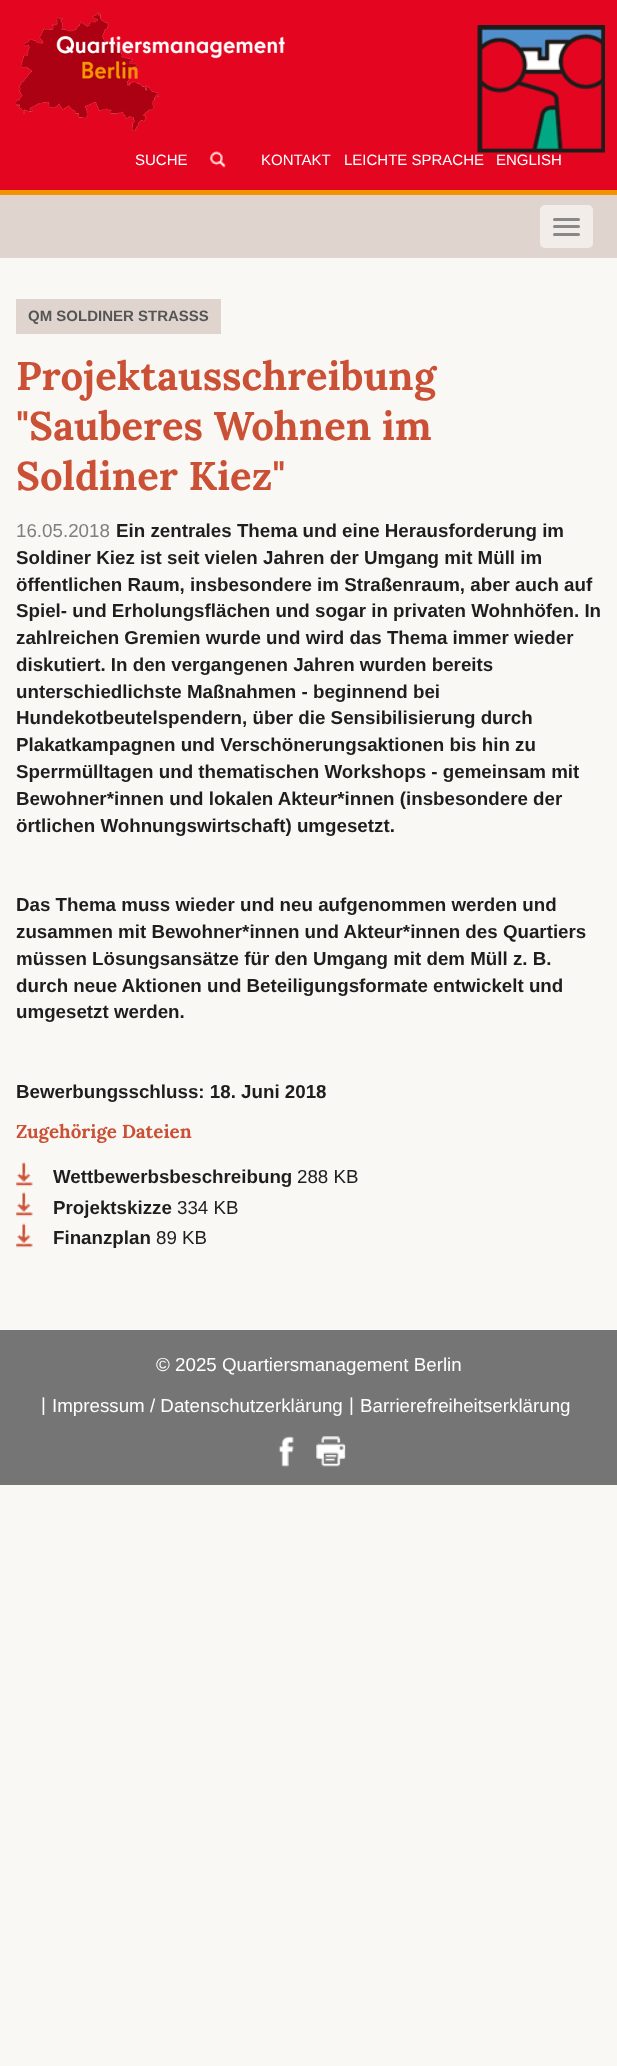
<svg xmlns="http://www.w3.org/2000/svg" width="617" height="2066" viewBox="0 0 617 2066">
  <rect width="100%" height="100%" fill="rgb(250,248,245)"/>
  <rect x="0" y="0" width="617" height="190" fill="rgb(228,5,33)"/>
  <image x="16" y="12" width="269" height="120" href="pic1.png"/>
  <image x="477" y="25" width="128" height="128" href="pic2.png"/>
  <text x="135" y="165" font-family="Liberation Sans" font-size="15" fill="rgb(255,255,255)">SUCHE</text>
  <image x="209" y="151" width="18" height="17" href="pic3.png"/>
  <g font-family="Liberation Sans" font-size="15" fill="rgb(255,255,255)">
    <text x="261" y="165">KONTAKT</text>
    <text x="344" y="165">LEICHTE SPRACHE</text>
    <text x="496" y="165">ENGLISH</text>
  </g>
  <rect x="0" y="195" width="617" height="63" fill="rgb(224,213,206)"/>
  <rect x="0" y="190" width="617" height="5" fill="rgb(243,147,0)"/>
  <rect x="540" y="205" width="53" height="43" rx="5" fill="rgb(242,237,233)"/>
  <rect x="553" y="218" width="27" height="3" rx="1.5" fill="rgb(136,136,136)"/>
  <rect x="553" y="225" width="27" height="3" rx="1.5" fill="rgb(136,136,136)"/>
  <rect x="553" y="233" width="27" height="3" rx="1.5" fill="rgb(136,136,136)"/>
  <rect x="16" y="299" width="205" height="35" fill="rgb(224,213,206)"/>
  <text x="28" y="321" font-family="Liberation Sans" font-size="15" font-weight="bold" fill="rgb(85,85,85)">QM SOLDINER STRASSS</text>
  <g font-family="Lora" font-size="40" font-weight="bold" fill="rgb(202,81,54)">
    <text>
      <tspan x="16" y="390">Projektausschreibung</tspan>
      <tspan x="16" y="440">"Sauberes Wohnen im</tspan>
      <tspan x="16" y="490">Soldiner Kiez"</tspan>
    </text>
  </g>
  <g font-family="Liberation Sans" font-size="18.75" font-weight="bold" fill="rgb(30,30,30)">
    <text x="116" y="537">Ein zentrales Thema und eine Herausforderung im</text>
    <text>
      <tspan x="16" y="564">Soldiner Kiez ist seit vielen Jahren der Umgang mit Müll im</tspan>
      <tspan x="16" y="591">öffentlichen Raum, insbesondere im Straßenraum, aber auch auf</tspan>
      <tspan x="16" y="617">Spiel- und Erholungsflächen und sogar in privaten Wohnhöfen. In</tspan>
      <tspan x="16" y="644">zahlreichen Gremien wurde und wird das Thema immer wieder</tspan>
      <tspan x="16" y="671">diskutiert. In den vergangenen Jahren wurden bereits</tspan>
      <tspan x="16" y="698">unterschiedlichste Maßnahmen - beginnend bei</tspan>
      <tspan x="16" y="724">Hundekotbeutelspendern, über die Sensibilisierung durch</tspan>
      <tspan x="16" y="751">Plakatkampagnen und Verschönerungsaktionen bis hin zu</tspan>
      <tspan x="16" y="778">Sperrmülltagen und thematischen Workshops - gemeinsam mit</tspan>
      <tspan x="16" y="805">Bewohner*innen und lokalen Akteur*innen (insbesondere der</tspan>
      <tspan x="16" y="832">örtlichen Wohnungswirtschaft) umgesetzt.</tspan>
    </text>
    <text>
      <tspan x="16" y="911">Das Thema muss wieder und neu aufgenommen werden und</tspan>
      <tspan x="16" y="938">zusammen mit Bewohner*innen und Akteur*innen des Quartiers</tspan>
      <tspan x="16" y="965">müssen Lösungsansätze für den Umgang mit dem Müll z. B.</tspan>
      <tspan x="16" y="992">durch neue Aktionen und Beteiligungsformate entwickelt und</tspan>
      <tspan x="16" y="1018">umgesetzt werden.</tspan>
    </text>
  </g>
  <text x="16" y="537" font-family="Liberation Sans" font-size="18.75" fill="rgb(128,128,128)">16.05.2018</text>
  <text x="16" y="1098" font-family="Liberation Sans" font-size="18.75" font-weight="bold" fill="rgb(30,30,30)">Bewerbungsschluss: 18. Juni 2018</text>
  <text x="16" y="1138" font-family="Lora" font-size="18.75" font-weight="bold" fill="rgb(202,81,54)">Zugehörige Dateien</text>
  <image x="16" y="1162" width="17" height="25" href="pic4.png"/>
  <text x="53" y="1183" font-family="Liberation Sans" font-size="18.75" font-weight="bold" fill="rgb(30,30,30)">Wettbewerbsbeschreibung</text>
  <text x="297" y="1183" font-family="Liberation Sans" font-size="18.75" fill="rgb(30,30,30)">288 KB</text>
  <image x="16" y="1192" width="17" height="25" href="pic5.png"/>
  <text x="53" y="1214" font-family="Liberation Sans" font-size="18.75" font-weight="bold" fill="rgb(30,30,30)">Projektskizze</text>
  <text x="177" y="1214" font-family="Liberation Sans" font-size="18.75" fill="rgb(30,30,30)">334 KB</text>
  <image x="16" y="1223" width="17" height="25" href="pic6.png"/>
  <text x="53" y="1244" font-family="Liberation Sans" font-size="18.75" font-weight="bold" fill="rgb(30,30,30)">Finanzplan</text>
  <text x="156" y="1244" font-family="Liberation Sans" font-size="18.75" fill="rgb(30,30,30)">89 KB</text>
  <rect x="0" y="1330" width="617" height="155" fill="rgb(117,117,117)"/>
  <g font-family="Liberation Sans" font-size="18.75" fill="rgb(255,255,255)">
    <text x="156" y="1371">© 2025 Quartiersmanagement Berlin</text>
    <text x="41" y="1411">|</text>
    <text x="52" y="1412">Impressum / Datenschutzerklärung</text>
    <text x="349" y="1411">|</text>
    <text x="360" y="1412">Barrierefreiheitserklärung</text>
  </g>
  <image x="278" y="1436" width="16" height="31" href="pic7.png"/>
  <image x="316" y="1436" width="30" height="31" href="pic8.png"/>
</svg>
